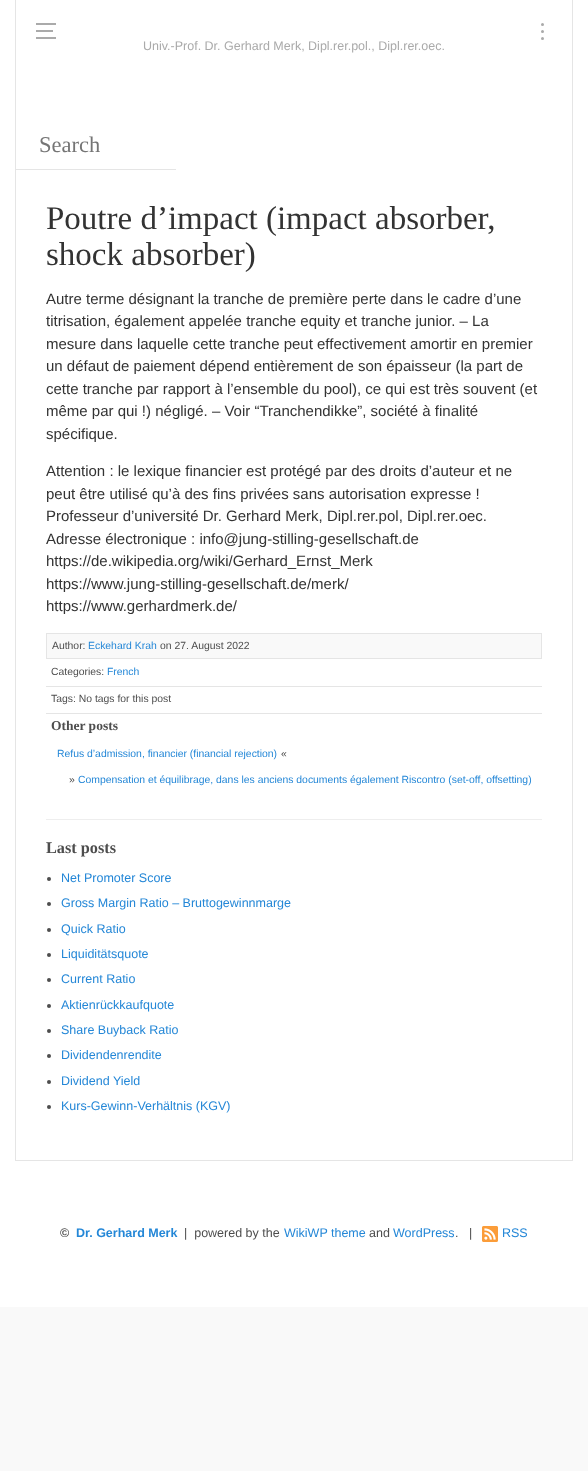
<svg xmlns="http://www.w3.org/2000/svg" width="588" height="1471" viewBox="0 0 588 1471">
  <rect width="100%" height="100%" fill="rgb(249,249,249)"/>
  <rect x="0" y="0" width="588" height="1307" fill="rgb(255,255,255)"/>
  <text x="143" y="50" font-family="Liberation Sans" font-size="12.5" fill="rgb(170,170,170)">Univ.-Prof. Dr. Gerhard Merk, Dipl.rer.pol., Dipl.rer.oec.</text>
  <rect x="36" y="23" width="20" height="2" fill="rgb(170,170,170)"/>
  <rect x="36" y="30" width="17" height="2" fill="rgb(170,170,170)"/>
  <rect x="36" y="37" width="20" height="2" fill="rgb(170,170,170)"/>
  <circle cx="542.5" cy="24.5" r="1.5" fill="rgb(170,170,170)"/>
  <circle cx="542.5" cy="31.5" r="1.5" fill="rgb(170,170,170)"/>
  <circle cx="542.5" cy="38.5" r="1.5" fill="rgb(170,170,170)"/>
  <rect x="572" y="0" width="1" height="1161" fill="rgb(229,229,229)"/>
  <rect x="15" y="0" width="1" height="170" fill="rgb(229,229,229)"/>
  <rect x="16" y="169" width="160" height="1" fill="rgb(229,229,229)"/>
  <text x="39" y="152" font-family="Liberation Serif" font-size="22.5" fill="rgb(117,117,117)">Search</text>
  <rect x="15" y="1160" width="558" height="1" fill="rgb(229,229,229)"/>
  <rect x="15" y="170" width="1" height="991" fill="rgb(229,229,229)"/>
  <g font-family="Liberation Serif" font-size="33" fill="rgb(51,51,51)">
    <text>
      <tspan x="46" y="229">Poutre d’impact (impact absorber,</tspan>
      <tspan x="46" y="265">shock absorber)</tspan>
    </text>
  </g>
  <g font-family="Liberation Sans" font-size="15" fill="rgb(51,51,51)">
    <text>
      <tspan x="46" y="304">Autre terme désignant la tranche de première perte dans le cadre d’une</tspan>
      <tspan x="46" y="326">titrisation, également appelée tranche equity et tranche junior. – La</tspan>
      <tspan x="46" y="349">mesure dans laquelle cette tranche peut effectivement amortir en premier</tspan>
      <tspan x="46" y="371">un défaut de paiement dépend entièrement de son épaisseur (la part de</tspan>
      <tspan x="46" y="394">cette tranche par rapport à l’ensemble du pool), ce qui est très souvent (et</tspan>
      <tspan x="46" y="416">même par qui !) négligé. – Voir “Tranchendikke”, société à finalité</tspan>
      <tspan x="46" y="439">spécifique.</tspan>
    </text>
    <text>
      <tspan x="46" y="476">Attention : le lexique financier est protégé par des droits d’auteur et ne</tspan>
      <tspan x="46" y="499">peut être utilisé qu’à des fins privées sans autorisation expresse !</tspan>
      <tspan x="46" y="521">Professeur d’université Dr. Gerhard Merk, Dipl.rer.pol, Dipl.rer.oec.</tspan>
      <tspan x="46" y="544">Adresse électronique : info@jung-stilling-gesellschaft.de</tspan>
      <tspan x="46" y="566">https://de.wikipedia.org/wiki/Gerhard_Ernst_Merk</tspan>
      <tspan x="46" y="589">https://www.jung-stilling-gesellschaft.de/merk/</tspan>
      <tspan x="46" y="611">https://www.gerhardmerk.de/</tspan>
    </text>
  </g>
  <rect x="46.5" y="633.5" width="495" height="25" fill="rgb(249,249,249)" stroke="rgb(229,229,229)"/>
  <text x="52" y="649" font-family="Liberation Sans" font-size="10.4" fill="rgb(77,77,77)">Author:</text>
  <text x="88" y="649" font-family="Liberation Sans" font-size="10.4" fill="rgb(36,135,215)">Eckehard Krah</text>
  <g font-family="Liberation Sans" font-size="10.4" fill="rgb(77,77,77)">
    <text x="160" y="649">on 27. August 2022</text>
    <text x="51" y="675">Categories:</text>
  </g>
  <text x="107" y="675" font-family="Liberation Sans" font-size="10.4" fill="rgb(36,135,215)">French</text>
  <rect x="46" y="686" width="496" height="1" fill="rgb(229,229,229)"/>
  <text x="51" y="702" font-family="Liberation Sans" font-size="10.4" fill="rgb(77,77,77)">Tags: No tags for this post</text>
  <rect x="46" y="713" width="496" height="1" fill="rgb(229,229,229)"/>
  <text x="51" y="730" font-family="Liberation Serif" font-size="13.5" font-weight="bold" fill="rgb(77,77,77)">Other posts</text>
  <text x="57" y="757" font-family="Liberation Sans" font-size="10.4" fill="rgb(36,135,215)">Refus d’admission, financier (financial rejection)</text>
  <g font-family="Liberation Sans" font-size="10.4" fill="rgb(77,77,77)">
    <text x="281" y="757">«</text>
    <text x="69" y="783">»</text>
  </g>
  <text x="78" y="783" font-family="Liberation Sans" font-size="10.4" fill="rgb(36,135,215)">Compensation et équilibrage, dans les anciens documents également Riscontro (set-off, offsetting)</text>
  <rect x="46" y="819" width="496" height="1" fill="rgb(238,238,238)"/>
  <text x="46" y="853" font-family="Liberation Serif" font-size="16.25" font-weight="bold" fill="rgb(77,77,77)">Last posts</text>
  <circle cx="49" cy="879" r="2" fill="rgb(77,77,77)"/>
  <text x="61" y="882" font-family="Liberation Sans" font-size="12.5" fill="rgb(36,135,215)">Net Promoter Score</text>
  <circle cx="49" cy="904" r="2" fill="rgb(77,77,77)"/>
  <text x="61" y="907" font-family="Liberation Sans" font-size="12.5" fill="rgb(36,135,215)">Gross Margin Ratio – Bruttogewinnmarge</text>
  <circle cx="49" cy="930" r="2" fill="rgb(77,77,77)"/>
  <text x="61" y="933" font-family="Liberation Sans" font-size="12.5" fill="rgb(36,135,215)">Quick Ratio</text>
  <circle cx="49" cy="955" r="2" fill="rgb(77,77,77)"/>
  <text x="61" y="958" font-family="Liberation Sans" font-size="12.5" fill="rgb(36,135,215)">Liquiditätsquote</text>
  <circle cx="49" cy="980" r="2" fill="rgb(77,77,77)"/>
  <text x="61" y="983" font-family="Liberation Sans" font-size="12.5" fill="rgb(36,135,215)">Current Ratio</text>
  <circle cx="49" cy="1006" r="2" fill="rgb(77,77,77)"/>
  <text x="61" y="1009" font-family="Liberation Sans" font-size="12.5" fill="rgb(36,135,215)">Aktienrückkaufquote</text>
  <circle cx="49" cy="1031" r="2" fill="rgb(77,77,77)"/>
  <text x="61" y="1034" font-family="Liberation Sans" font-size="12.5" fill="rgb(36,135,215)">Share Buyback Ratio</text>
  <circle cx="49" cy="1056" r="2" fill="rgb(77,77,77)"/>
  <text x="61" y="1059" font-family="Liberation Sans" font-size="12.5" fill="rgb(36,135,215)">Dividendenrendite</text>
  <circle cx="49" cy="1082" r="2" fill="rgb(77,77,77)"/>
  <text x="61" y="1085" font-family="Liberation Sans" font-size="12.5" fill="rgb(36,135,215)">Dividend Yield</text>
  <circle cx="49" cy="1107" r="2" fill="rgb(77,77,77)"/>
  <text x="61" y="1110" font-family="Liberation Sans" font-size="12.5" fill="rgb(36,135,215)">Kurs-Gewinn-Verhältnis (KGV)</text>
  <text x="60" y="1237" font-family="Liberation Sans" font-size="12.5" font-weight="bold" fill="rgb(77,77,77)">©</text>
  <text x="76" y="1237" font-family="Liberation Sans" font-size="12.5" font-weight="bold" fill="rgb(36,135,215)">Dr. Gerhard Merk</text>
  <text x="184" y="1237" font-family="Liberation Sans" font-size="12.5" fill="rgb(77,77,77)" xml:space="preserve">|  powered by the</text>
  <text x="284" y="1237" font-family="Liberation Sans" font-size="12.5" fill="rgb(36,135,215)">WikiWP theme</text>
  <text x="369" y="1237" font-family="Liberation Sans" font-size="12.5" fill="rgb(77,77,77)">and</text>
  <text x="393" y="1237" font-family="Liberation Sans" font-size="12.5" fill="rgb(36,135,215)">WordPress</text>
  <text x="455" y="1237" font-family="Liberation Sans" font-size="12.5" fill="rgb(77,77,77)" xml:space="preserve">.   |</text>
  <image x="482" y="1226" width="16" height="16" href="pic1.png"/>
  <text x="502" y="1237" font-family="Liberation Sans" font-size="12.5" fill="rgb(36,135,215)">RSS</text>
</svg>
